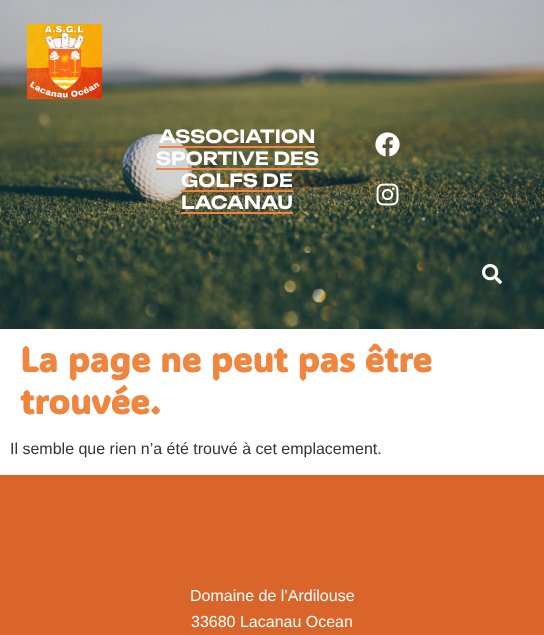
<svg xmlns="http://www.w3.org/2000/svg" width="544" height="635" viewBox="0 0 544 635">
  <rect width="100%" height="100%" fill="rgb(255,255,255)"/>
  <image x="0" y="0" width="544" height="329" href="pic1.png"/>
  <image x="27" y="24" width="75" height="75" href="pic2.png"/>
  <text x="159" y="143" font-family="Unbounded" font-size="18" font-weight="600" fill="rgb(255,255,255)">ASSOCIATION</text>
  <rect x="159" y="146" width="156" height="2" fill="rgb(239,134,64)"/>
  <text x="156" y="165" font-family="Unbounded" font-size="18" font-weight="600" fill="rgb(255,255,255)">SPORTIVE DES</text>
  <rect x="156" y="168" width="162" height="2" fill="rgb(239,134,64)"/>
  <text x="181" y="187" font-family="Unbounded" font-size="18" font-weight="600" fill="rgb(255,255,255)">GOLFS DE</text>
  <rect x="181" y="190" width="112" height="2" fill="rgb(239,134,64)"/>
  <text x="181" y="209" font-family="Unbounded" font-size="18" font-weight="600" fill="rgb(255,255,255)">LACANAU</text>
  <rect x="181" y="212" width="112" height="2" fill="rgb(239,134,64)"/>
  <image x="375" y="132" width="25" height="25" href="pic3.png"/>
  <image x="376" y="183" width="23" height="23" href="pic4.png"/>
  <image x="482" y="264" width="20" height="20" href="pic5.png"/>
  <g font-family="ADLaM Display" font-size="35" font-weight="bold" fill="rgb(239,134,64)">
    <text>
      <tspan x="20" y="372">La page ne peut pas être</tspan>
      <tspan x="20" y="414">trouvée.</tspan>
    </text>
  </g>
  <text x="10" y="454" font-family="Liberation Sans" font-size="16" fill="rgb(51,51,51)">Il semble que rien n’a été trouvé à cet emplacement.</text>
  <rect x="0" y="475" width="544" height="160" fill="rgb(218,101,43)"/>
  <g font-family="Liberation Sans" font-size="16" fill="rgb(255,255,255)">
    <text x="190" y="601">Domaine de l’Ardilouse</text>
    <text x="191" y="627">33680 Lacanau Ocean</text>
  </g>
</svg>
